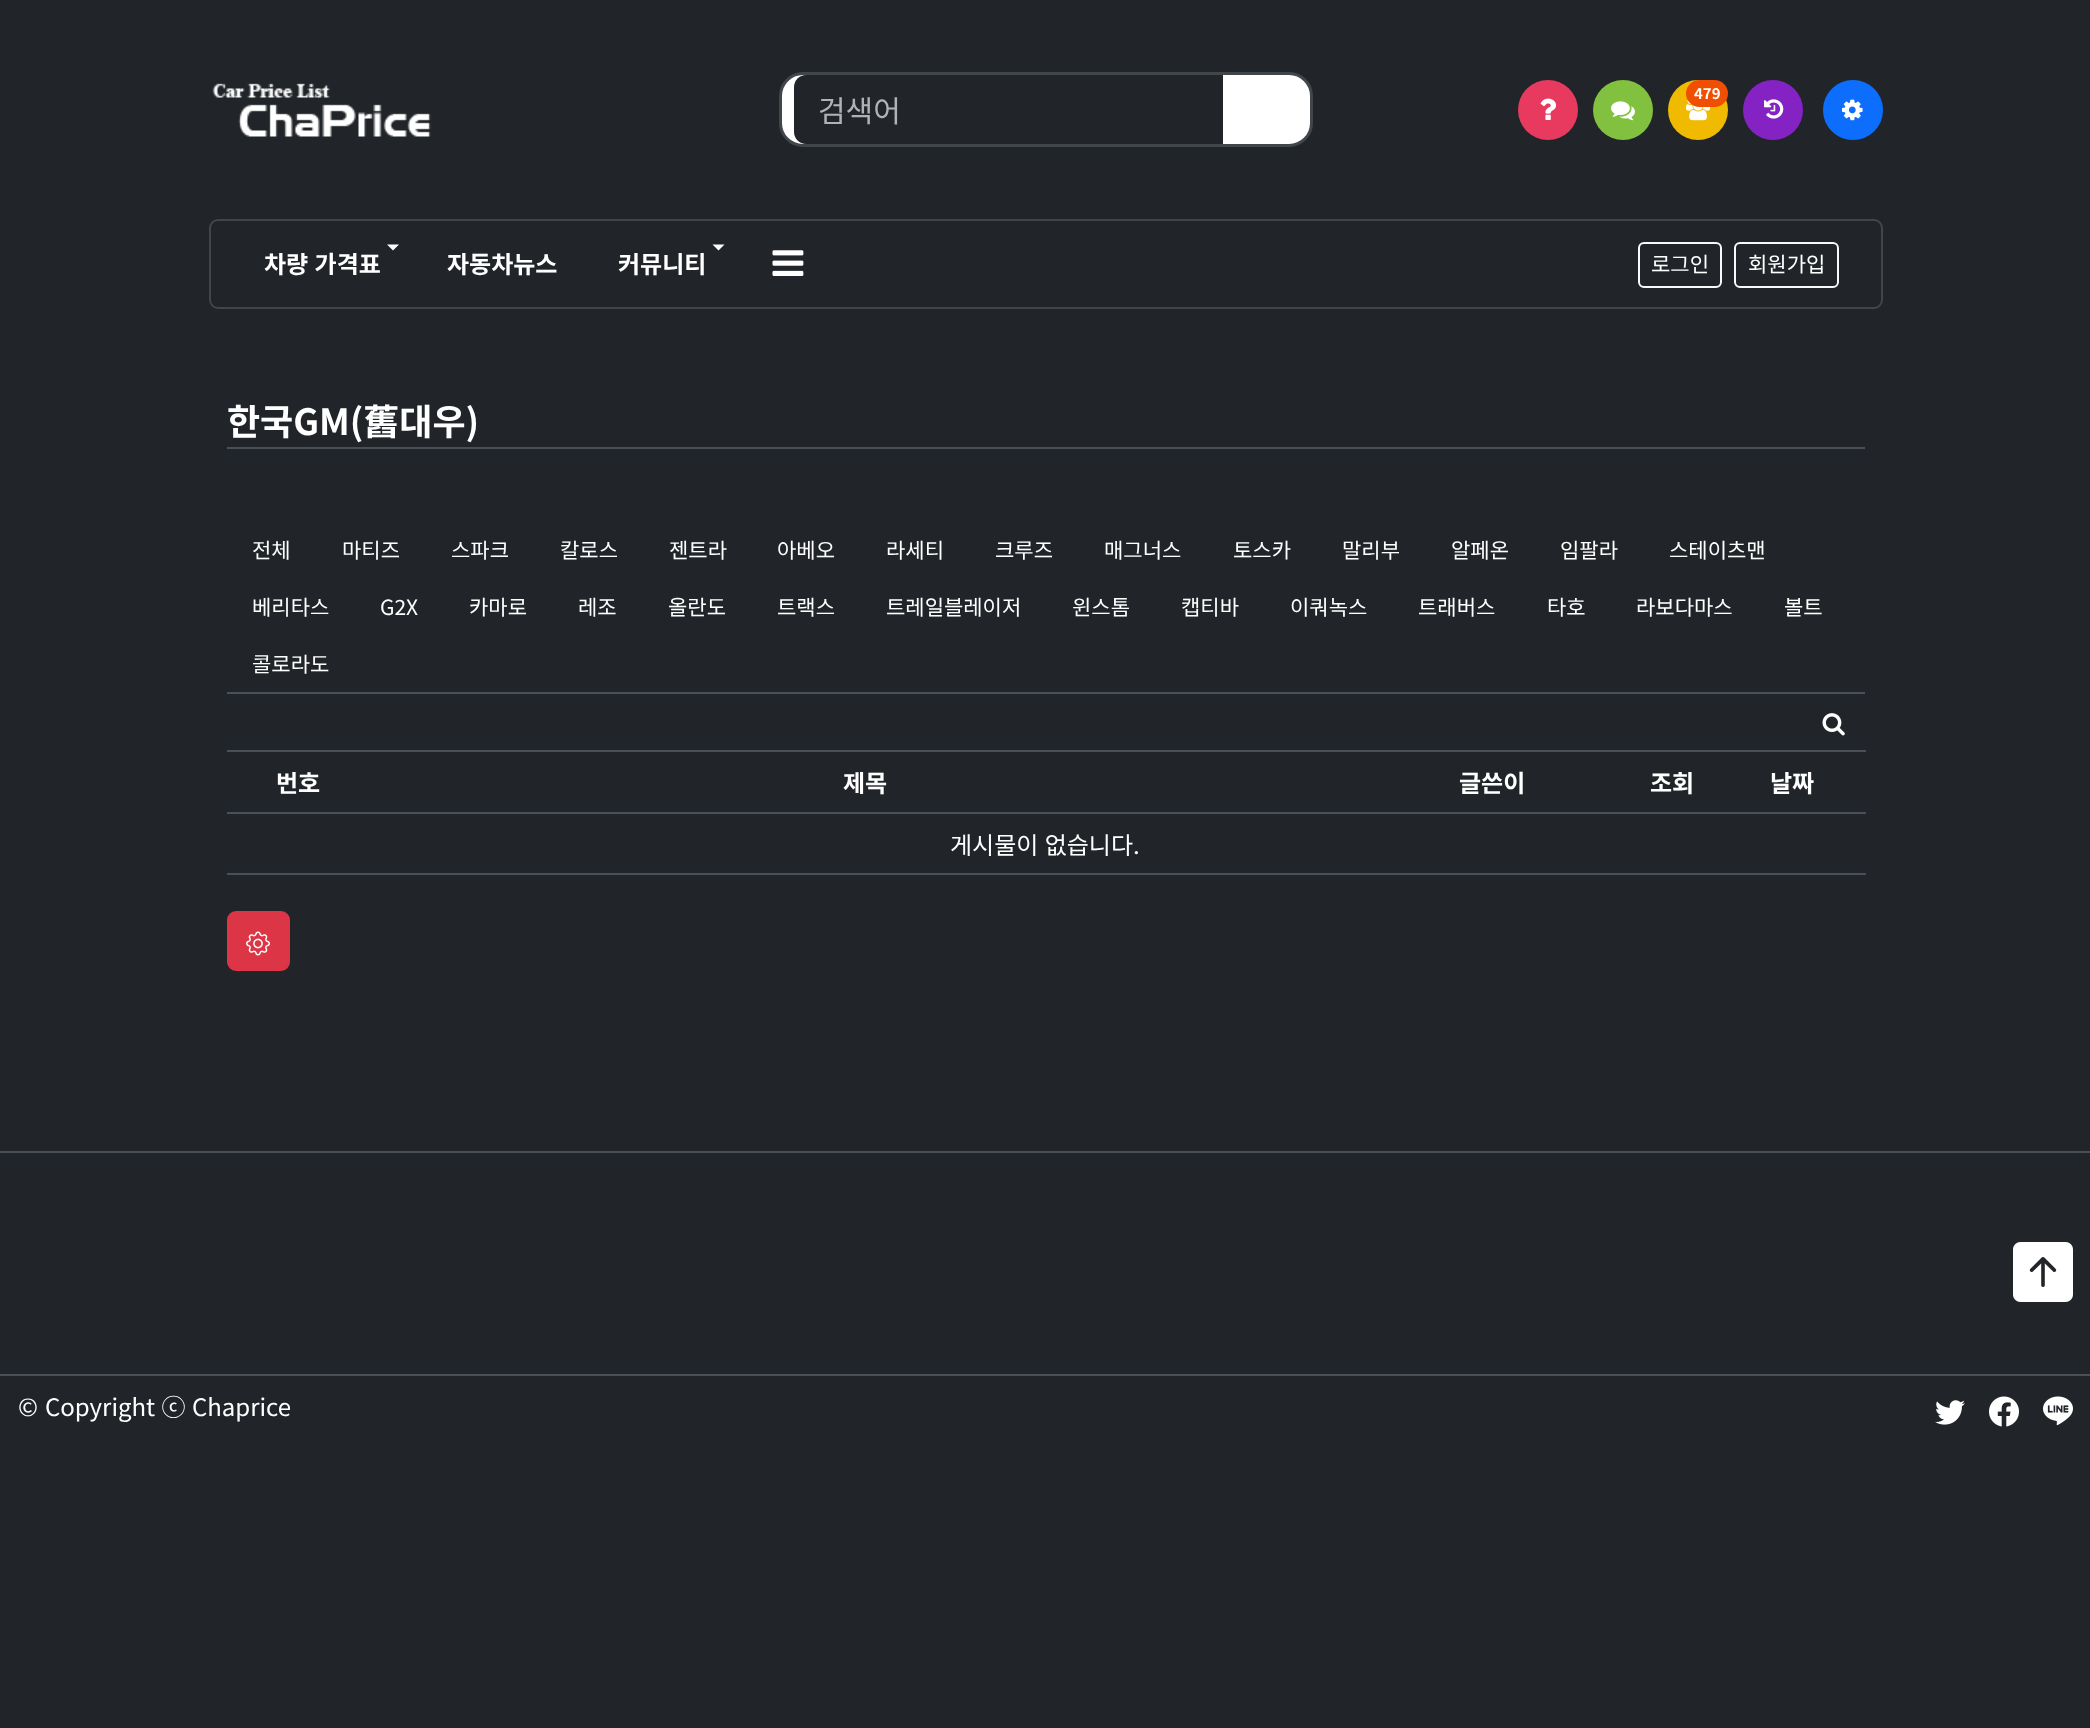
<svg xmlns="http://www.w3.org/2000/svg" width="2090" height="1728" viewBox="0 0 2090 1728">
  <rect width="100%" height="100%" fill="rgb(33,37,41)"/>
  <image x="212" y="83" width="219" height="54" href="pic1.png"/>
  <circle cx="1548" cy="110" r="30" fill="rgb(232,58,95)"/>
  <image x="1540" y="98" width="17" height="22" href="pic2.png"/>
  <circle cx="1623" cy="110" r="30" fill="rgb(130,193,63)"/>
  <image x="1611" y="101" width="24" height="20" href="pic3.png"/>
  <circle cx="1698" cy="110" r="30" fill="rgb(240,186,0)"/>
  <image x="1686" y="99" width="25" height="22" href="pic4.png"/>
  <rect x="1686" y="80" width="42" height="27" rx="13.5" fill="rgb(240,78,0)"/>
  <text x="1694" y="99" font-family="Noto Sans KR" font-size="15" font-weight="bold" fill="rgb(255,255,255)">479</text>
  <circle cx="1773" cy="110" r="30" fill="rgb(133,34,196)"/>
  <image x="1764" y="99" width="20" height="20" href="pic5.png"/>
  <circle cx="1853" cy="110" r="29" fill="rgb(13,110,253)" stroke="rgb(13,110,253)" stroke-width="2"/>
  <image x="1842" y="99" width="21" height="22" href="pic6.png"/>
  <rect x="780.5" y="73.5" width="531" height="72" rx="22.5" fill="rgb(255,255,255)" stroke="rgb(65,70,75)" stroke-width="3"/>
  <path d="M806 75H1223V144H806C799.5 144 794 138.5 794 132V87C794 80.5 799.5 75 806 75Z" fill="rgb(33,37,41)"/>
  <text x="818" y="122" font-family="Noto Sans KR" font-size="30" fill="rgb(175,179,183)">검색어</text>
  <rect x="210" y="220" width="1672" height="88" rx="8" fill="none" stroke="rgb(65,70,75)" stroke-width="2"/>
  <path d="M387 244.5H399L393 250.5Z" fill="rgb(255,255,255)"/>
  <g font-family="Noto Sans KR" font-size="24" font-weight="bold" fill="rgb(255,255,255)">
    <text x="264" y="273" word-spacing="1">차량 가격표</text>
    <text x="447" y="273">자동차뉴스</text>
  </g>
  <path d="M712.5 244.5H724.5L718.5 250.5Z" fill="rgb(255,255,255)"/>
  <text x="618" y="273" font-family="Noto Sans KR" font-size="24" font-weight="bold" fill="rgb(255,255,255)">커뮤니티</text>
  <image x="772" y="250" width="32" height="26" href="pic7.png"/>
  <rect x="1639" y="243" width="82" height="44" rx="5" fill="none" stroke="rgb(248,249,250)" stroke-width="2"/>
  <text x="1651" y="272" font-family="Noto Sans KR" font-size="21" fill="rgb(255,255,255)">로그인</text>
  <rect x="1735" y="243" width="103" height="44" rx="5" fill="none" stroke="rgb(248,249,250)" stroke-width="2"/>
  <text x="1748" y="272" font-family="Noto Sans KR" font-size="21" fill="rgb(255,255,255)">회원가입</text>
  <rect x="227" y="447" width="1638" height="2" fill="rgb(73,80,87)"/>
  <text x="227" y="435" font-family="Noto Sans KR" font-size="36" font-weight="bold" fill="rgb(255,255,255)">한국GM(舊대우)</text>
  <rect x="227" y="692" width="1638" height="2" fill="rgb(73,80,87)"/>
  <g font-family="Noto Sans KR" font-size="21" fill="rgb(255,255,255)">
    <text x="252" y="558">전체</text>
    <text x="342" y="558">마티즈</text>
    <text x="451" y="558">스파크</text>
    <text x="560" y="558">칼로스</text>
    <text x="669" y="558">젠트라</text>
    <text x="777" y="558">아베오</text>
    <text x="886" y="558">라세티</text>
    <text x="995" y="558">크루즈</text>
    <text x="1104" y="558">매그너스</text>
    <text x="1233" y="558">토스카</text>
    <text x="1342" y="558">말리부</text>
    <text x="1451" y="558">알페온</text>
    <text x="1560" y="558">임팔라</text>
    <text x="1669" y="558">스테이츠맨</text>
    <text x="252" y="615">베리타스</text>
    <text x="380" y="615">G2X</text>
    <text x="469" y="615">카마로</text>
    <text x="578" y="615">레조</text>
    <text x="668" y="615">올란도</text>
    <text x="777" y="615">트랙스</text>
    <text x="886" y="615">트레일블레이저</text>
    <text x="1072" y="615">윈스톰</text>
    <text x="1181" y="615">캡티바</text>
    <text x="1290" y="615">이쿼녹스</text>
    <text x="1418" y="615">트래버스</text>
    <text x="1547" y="615">타호</text>
    <text x="1636" y="615">라보다마스</text>
    <text x="1784" y="615">볼트</text>
    <text x="252" y="672">콜로라도</text>
  </g>
  <image x="1822" y="713" width="23" height="23" href="pic8.png"/>
  <rect x="227" y="750" width="1639" height="2" fill="rgb(73,80,87)"/>
  <g font-family="Noto Sans KR" font-size="24" font-weight="bold" fill="rgb(255,255,255)">
    <text x="276" y="792">번호</text>
    <text x="843" y="792">제목</text>
    <text x="1459" y="792">글쓴이</text>
    <text x="1650" y="792">조회</text>
  </g>
  <rect x="227" y="812" width="1639" height="2" fill="rgb(73,80,87)"/>
  <text x="1770" y="792" font-family="Noto Sans KR" font-size="24" font-weight="bold" fill="rgb(255,255,255)">날짜</text>
  <rect x="227" y="873" width="1639" height="2" fill="rgb(73,80,87)"/>
  <text x="950" y="854" word-spacing="1" font-family="Noto Sans KR" font-size="24" fill="rgb(255,255,255)">게시물이 없습니다.</text>
  <rect x="228" y="912" width="61" height="58" rx="8" fill="rgb(220,53,69)" stroke="rgb(220,53,69)" stroke-width="2"/>
  <image x="246" y="931" width="24" height="25" href="pic9.png"/>
  <rect x="0" y="1151" width="2090" height="2" fill="rgb(73,80,87)"/>
  <image x="2013" y="1242" width="60" height="60" href="pic10.png"/>
  <rect x="0" y="1374" width="2090" height="2" fill="rgb(73,80,87)"/>
  <g font-family="Noto Sans KR" font-size="24" fill="rgb(255,255,255)">
    <text x="18" y="1416">©</text>
    <text x="45" y="1416" word-spacing="1">Copyright ⓒ Chaprice</text>
  </g>
  <image x="1935" y="1400" width="30" height="25" href="pic11.png"/>
  <image x="1989" y="1396" width="30" height="31" href="pic12.png"/>
  <image x="2043" y="1396" width="30" height="30" href="pic13.png"/>
</svg>
